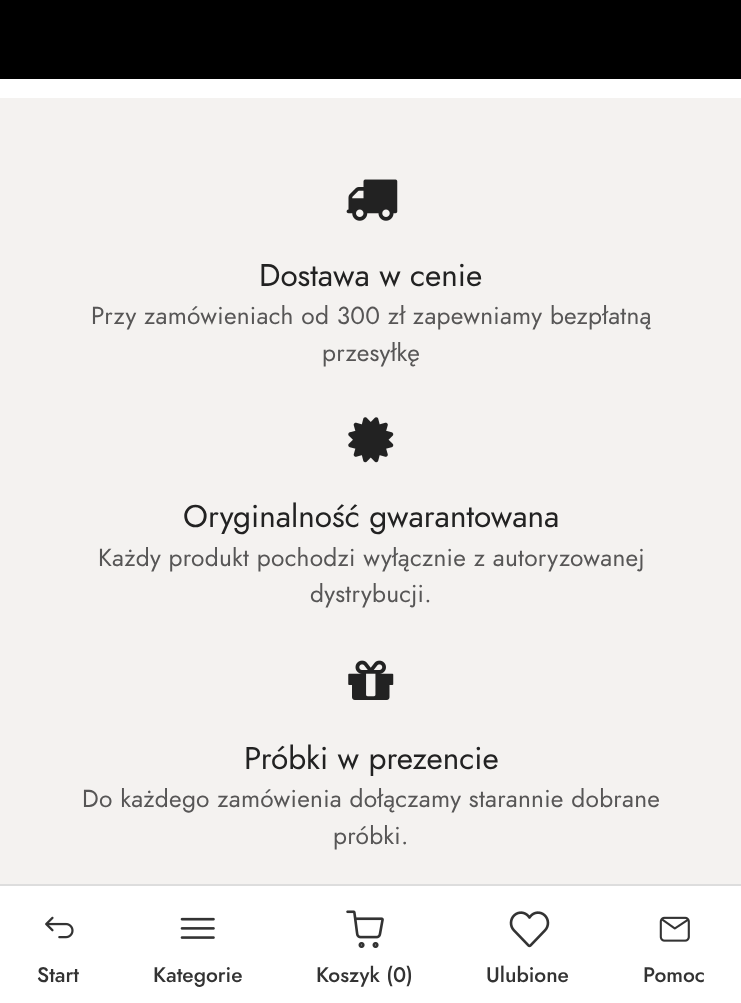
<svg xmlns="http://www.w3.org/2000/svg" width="741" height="1003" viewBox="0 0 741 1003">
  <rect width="100%" height="100%" fill="rgb(255,255,255)"/>
  <rect x="0" y="0" width="741" height="79" fill="rgb(0,0,0)"/>
  <rect x="0" y="98" width="741" height="786" fill="rgb(244,242,240)"/>
  <image x="346" y="179" width="52" height="42" href="pic1.png"/>
  <text x="259" y="286" font-family="Jost" font-size="31.5" fill="rgb(34,34,34)">Dostawa w cenie</text>
  <g font-family="Jost" font-size="24.5" letter-spacing="0.25" fill="rgb(87,86,86)">
    <text x="91" y="324">Przy zamówieniach od 300 zł zapewniamy bezpłatną</text>
    <text x="322" y="361">przesyłkę</text>
  </g>
  <image x="348" y="417" width="46" height="46" href="pic2.png"/>
  <text x="183" y="527" font-family="Jost" font-size="31.5" fill="rgb(34,34,34)">Oryginalność gwarantowana</text>
  <g font-family="Jost" font-size="24.5" letter-spacing="0.25" fill="rgb(87,86,86)">
    <text x="98" y="566">Każdy produkt pochodzi wyłącznie z autoryzowanej</text>
    <text x="310" y="602">dystrybucji.</text>
  </g>
  <image x="348" y="660" width="46" height="40" href="pic3.png"/>
  <text x="244" y="769" font-family="Jost" font-size="31.5" fill="rgb(34,34,34)">Próbki w prezencie</text>
  <g font-family="Jost" font-size="24.5" letter-spacing="0.25" fill="rgb(87,86,86)">
    <text x="82" y="807">Do każdego zamówienia dołączamy starannie dobrane</text>
    <text x="333" y="844">próbki.</text>
  </g>
  <rect x="0" y="884" width="741" height="2" fill="rgb(221,221,221)"/>
  <image x="45" y="916" width="29" height="23" href="pic4.png"/>
  <text x="37" y="982" font-family="Jost" font-size="21" font-weight="500" fill="rgb(51,51,51)">Start</text>
  <image x="180" y="917" width="35" height="22" href="pic5.png"/>
  <text x="153" y="982" font-family="Jost" font-size="21" font-weight="500" fill="rgb(51,51,51)">Kategorie</text>
  <image x="346" y="910" width="38" height="38" href="pic6.png"/>
  <text x="316" y="982" font-family="Jost" font-size="21" font-weight="500" fill="rgb(51,51,51)">Koszyk (0)</text>
  <image x="509" y="911" width="41" height="37" href="pic7.png"/>
  <text x="486" y="982" font-family="Jost" font-size="21" font-weight="500" fill="rgb(51,51,51)">Ulubione</text>
  <image x="659" y="916" width="31" height="26" href="pic8.png"/>
  <text x="643" y="982" font-family="Jost" font-size="21" font-weight="500" fill="rgb(51,51,51)">Pomoc</text>
</svg>
